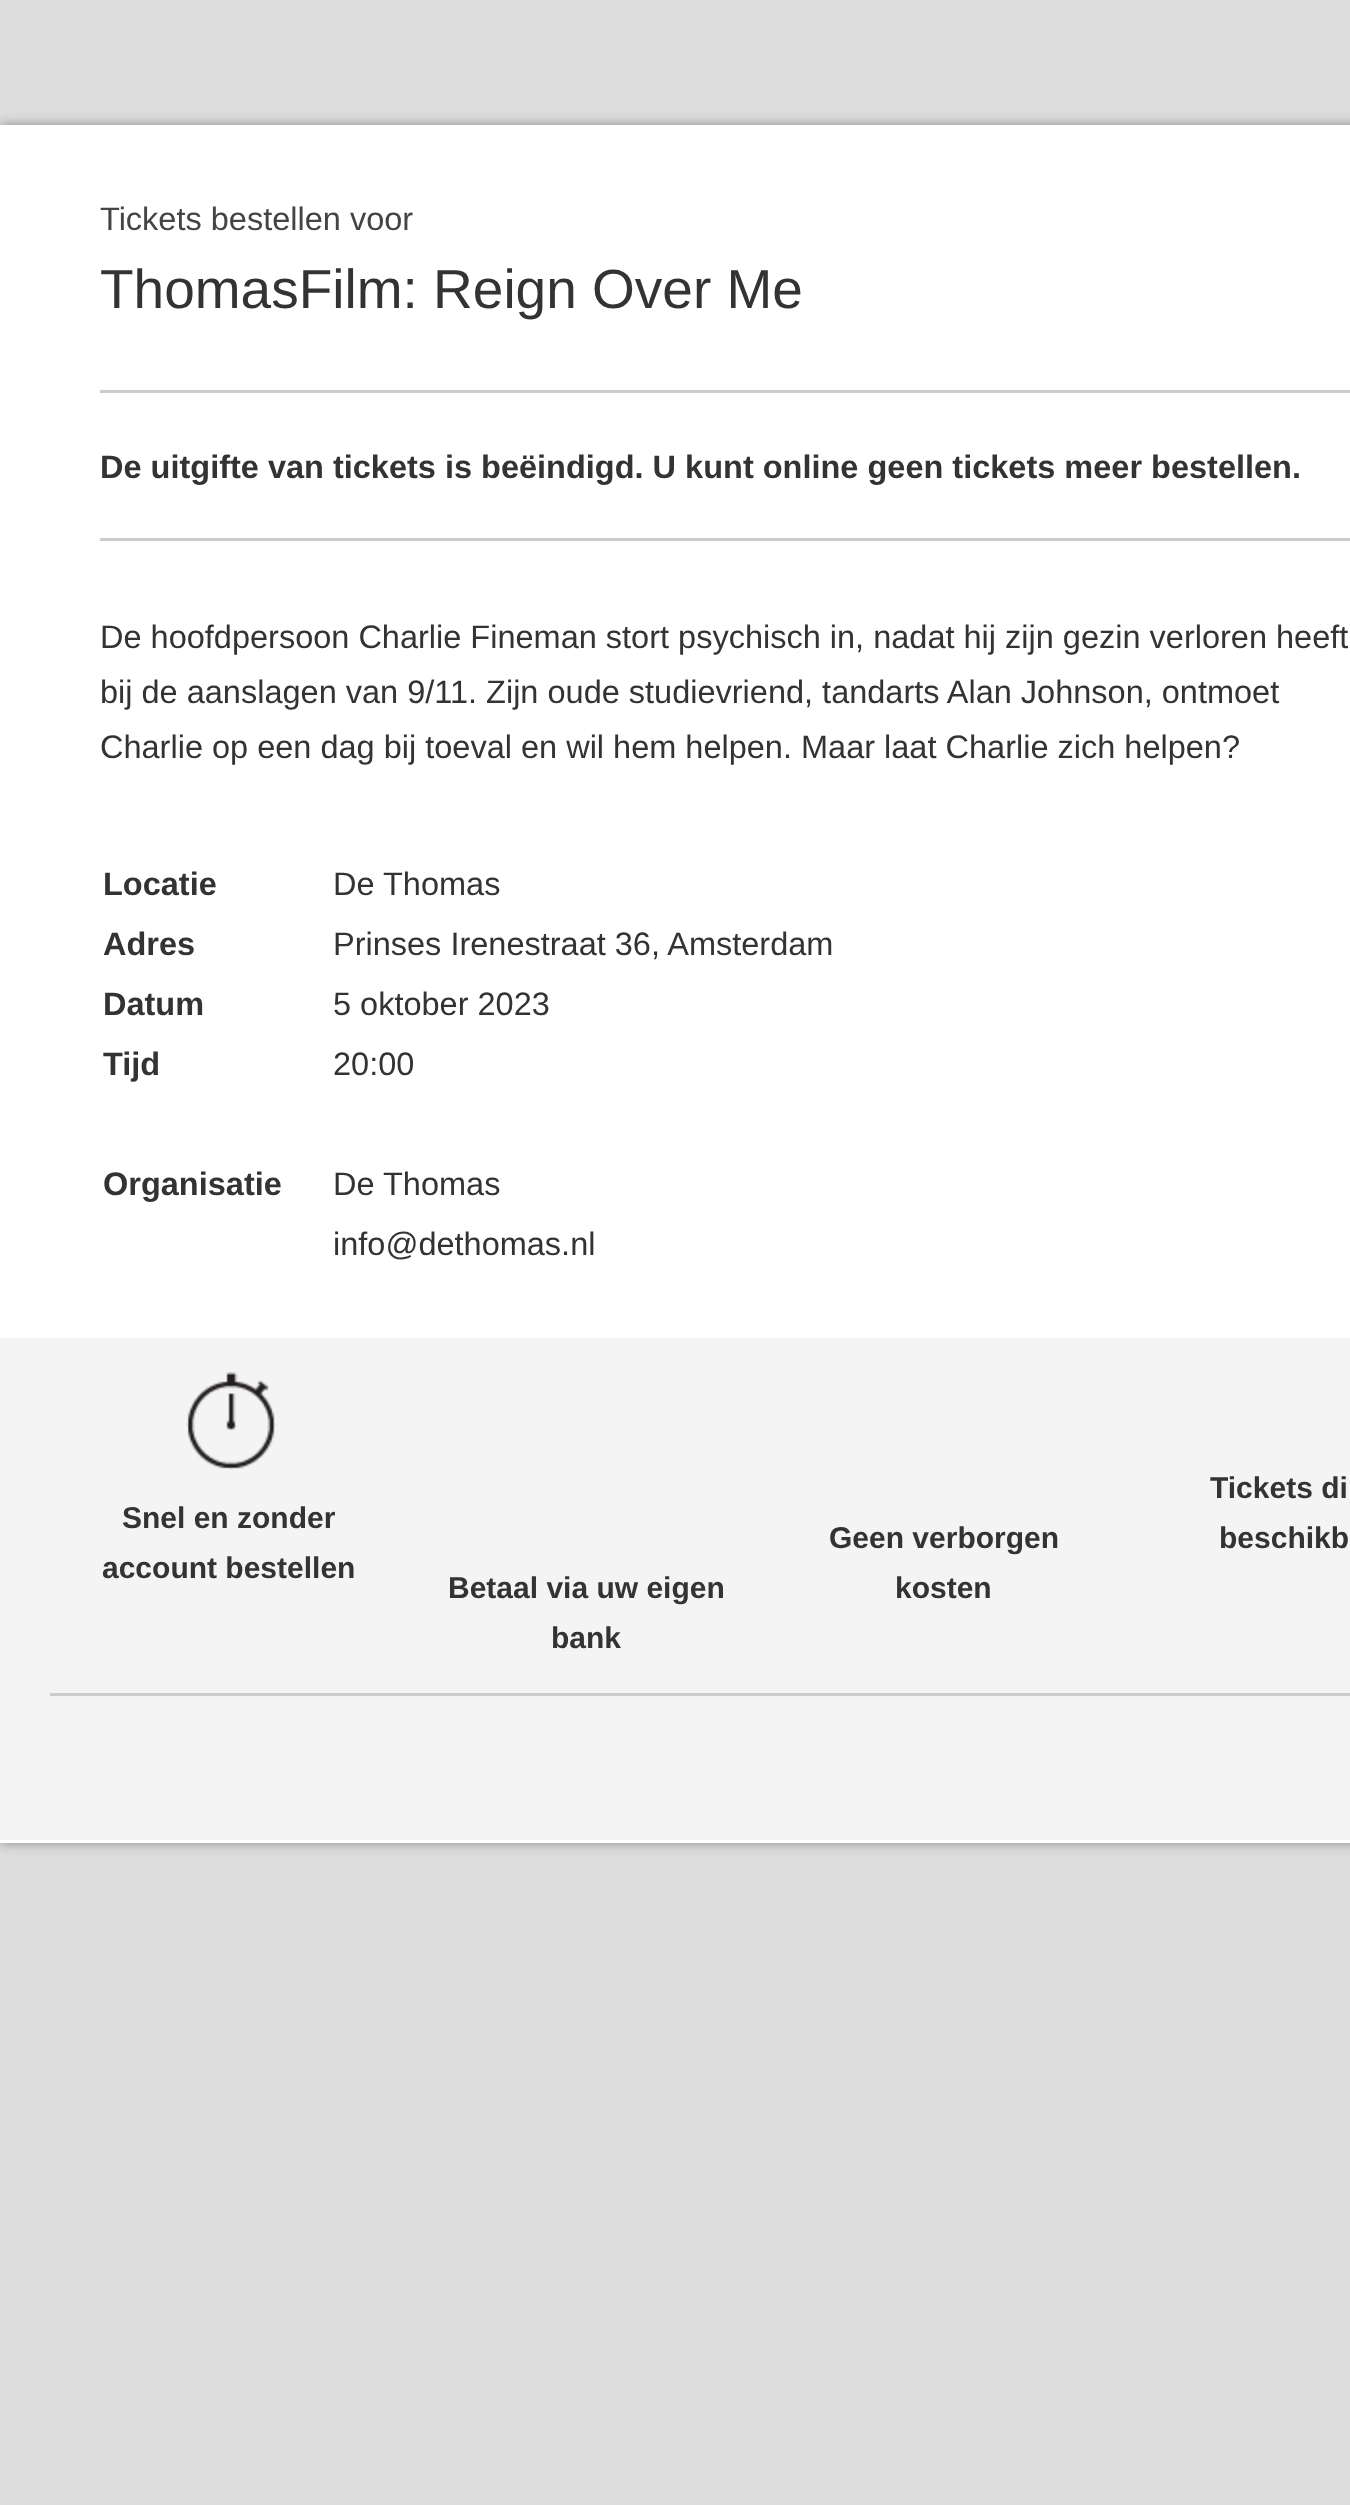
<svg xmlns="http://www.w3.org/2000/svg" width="1350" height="2505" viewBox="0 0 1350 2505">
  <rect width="100%" height="100%" fill="rgb(221,221,221)"/>
  <rect x="0" y="125" width="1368" height="1718" fill="rgb(136,136,136)" filter="blur(6px)"/>
  <rect x="0" y="125" width="1350" height="1718" fill="rgb(255,255,255)"/>
  <text x="100" y="230" font-family="Liberation Sans" font-size="32.5" fill="rgb(68,68,68)">Tickets bestellen voor</text>
  <text x="100" y="308" font-family="Liberation Sans" font-size="55" fill="rgb(51,51,51)">ThomasFilm: Reign Over Me</text>
  <rect x="100" y="390" width="1250" height="3" fill="rgb(204,204,204)"/>
  <rect x="100" y="538" width="1250" height="3" fill="rgb(204,204,204)"/>
  <text x="100" y="478" font-family="Liberation Sans" font-size="32.5" font-weight="bold" fill="rgb(51,51,51)">De uitgifte van tickets is beëindigd. U kunt online geen tickets meer bestellen.</text>
  <g font-family="Liberation Sans" font-size="32.5" fill="rgb(51,51,51)">
    <text>
      <tspan x="100" y="648">De hoofdpersoon Charlie Fineman stort psychisch in, nadat hij zijn gezin verloren heeft</tspan>
      <tspan x="100" y="703">bij de aanslagen van 9/11. Zijn oude studievriend, tandarts Alan Johnson, ontmoet</tspan>
      <tspan x="100" y="758">Charlie op een dag bij toeval en wil hem helpen. Maar laat Charlie zich helpen?</tspan>
    </text>
  </g>
  <text x="103" y="895" font-family="Liberation Sans" font-size="32.5" font-weight="bold" fill="rgb(51,51,51)">Locatie</text>
  <text x="333" y="895" font-family="Liberation Sans" font-size="32.5" fill="rgb(51,51,51)">De Thomas</text>
  <text x="103" y="955" font-family="Liberation Sans" font-size="32.5" font-weight="bold" fill="rgb(51,51,51)">Adres</text>
  <text x="333" y="955" font-family="Liberation Sans" font-size="32.5" fill="rgb(51,51,51)">Prinses Irenestraat 36, Amsterdam</text>
  <text x="103" y="1015" font-family="Liberation Sans" font-size="32.5" font-weight="bold" fill="rgb(51,51,51)">Datum</text>
  <text x="333" y="1015" font-family="Liberation Sans" font-size="32.5" fill="rgb(51,51,51)">5 oktober 2023</text>
  <text x="103" y="1075" font-family="Liberation Sans" font-size="32.5" font-weight="bold" fill="rgb(51,51,51)">Tijd</text>
  <text x="333" y="1075" font-family="Liberation Sans" font-size="32.5" fill="rgb(51,51,51)">20:00</text>
  <text x="103" y="1195" font-family="Liberation Sans" font-size="32.5" font-weight="bold" fill="rgb(51,51,51)">Organisatie</text>
  <g font-family="Liberation Sans" font-size="32.5" fill="rgb(51,51,51)">
    <text>
      <tspan x="333" y="1195">De Thomas</tspan>
      <tspan x="333" y="1255">info@dethomas.nl</tspan>
    </text>
  </g>
  <rect x="0" y="1338" width="1350" height="502" fill="rgb(244,244,244)"/>
  <image x="186" y="1372" width="90" height="98" href="pic1.png"/>
  <g font-family="Liberation Sans" font-size="30" font-weight="bold" fill="rgb(51,51,51)">
    <text x="122" y="1528">Snel en zonder</text>
    <text x="102" y="1578">account bestellen</text>
    <text x="829" y="1548">Geen verborgen</text>
    <text x="895" y="1598">kosten</text>
    <text x="448" y="1598">Betaal via uw eigen</text>
    <text x="551" y="1648">bank</text>
    <text x="1210" y="1498">Tickets di</text>
    <text x="1219" y="1548">beschikb</text>
  </g>
  <rect x="50" y="1693" width="1300" height="3" fill="rgb(204,204,204)"/>
</svg>
